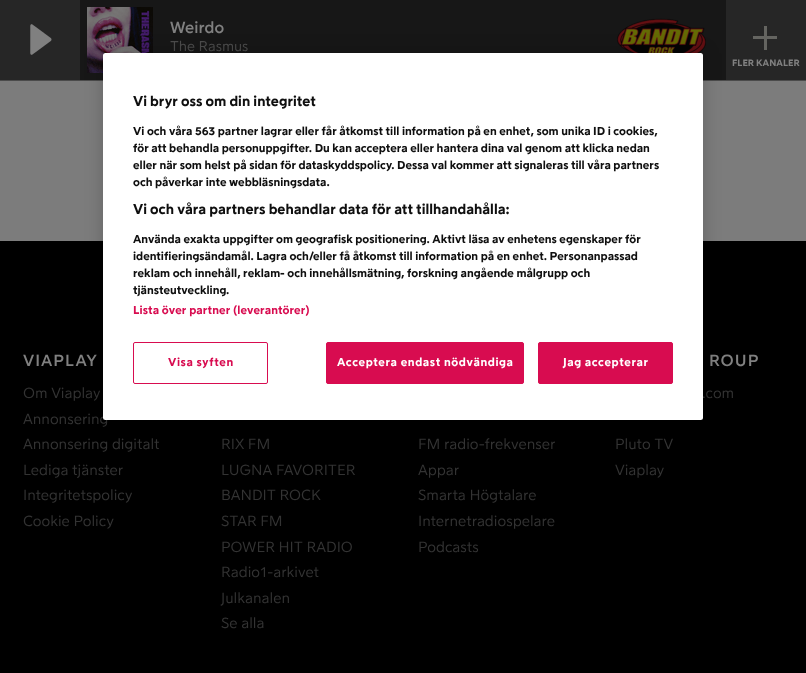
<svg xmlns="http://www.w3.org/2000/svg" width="806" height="673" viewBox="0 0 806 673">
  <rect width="100%" height="100%" fill="rgb(124,124,124)"/>
  <rect x="0" y="80" width="806" height="1" fill="rgb(75,75,75)"/>
  <rect x="80" y="0" width="646" height="80" fill="rgb(23,23,23)"/>
  <rect x="0" y="0" width="80" height="80" fill="rgb(38,38,38)"/>
  <image x="30" y="24" width="22" height="31" href="pic1.png"/>
  <image x="87" y="7" width="66" height="66" href="pic2.png"/>
  <text x="170" y="33" font-family="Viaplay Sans" font-size="16" font-weight="bold" fill="rgb(128,128,128)">Weirdo</text>
  <text x="170" y="51" font-family="Viaplay Sans" font-size="14" fill="rgb(76,76,76)">The Rasmus</text>
  <image x="617" y="18" width="89" height="35" href="pic3.png"/>
  <rect x="726" y="0" width="80" height="80" fill="rgb(38,38,38)"/>
  <rect x="764" y="26" width="3" height="24" fill="rgb(100,100,96)"/>
  <rect x="753" y="36" width="24" height="3" fill="rgb(100,100,96)"/>
  <text x="732" y="66" font-family="Viaplay Sans" font-size="9" font-weight="900" fill="rgb(128,128,128)">FLER KANALER</text>
  <rect x="0" y="241" width="806" height="432" fill="rgb(0,0,0)"/>
  <text x="23" y="366" font-family="Viaplay Sans" font-size="16" font-weight="bold" letter-spacing="1" fill="rgb(128,128,128)">VIAPLAY</text>
  <g font-family="Viaplay Sans" font-size="14.5" fill="rgb(51,51,51)">
    <text>
      <tspan x="23" y="398">Om Viaplay</tspan>
      <tspan x="23" y="424">Annonsering</tspan>
      <tspan x="23" y="449">Annonsering digitalt</tspan>
      <tspan x="23" y="475">Lediga tjänster</tspan>
      <tspan x="23" y="500">Integritetspolicy</tspan>
      <tspan x="23" y="526">Cookie Policy</tspan>
    </text>
  </g>
  <text x="709" y="366" font-family="Viaplay Sans" font-size="16" font-weight="bold" letter-spacing="1" fill="rgb(128,128,128)">ROUP</text>
  <g font-family="Viaplay Sans" font-size="14.5" fill="rgb(51,51,51)">
    <text x="702" y="398">.com</text>
    <text>
      <tspan x="615" y="449">Pluto TV</tspan>
      <tspan x="615" y="475">Viaplay</tspan>
    </text>
    <text>
      <tspan x="221" y="449">RIX FM</tspan>
      <tspan x="221" y="475">LUGNA FAVORITER</tspan>
      <tspan x="221" y="500">BANDIT ROCK</tspan>
      <tspan x="221" y="526">STAR FM</tspan>
      <tspan x="221" y="552">POWER HIT RADIO</tspan>
      <tspan x="221" y="577">Radio1-arkivet</tspan>
      <tspan x="221" y="603">Julkanalen</tspan>
      <tspan x="221" y="628">Se alla</tspan>
    </text>
    <text>
      <tspan x="418" y="449">FM radio-frekvenser</tspan>
      <tspan x="418" y="475">Appar</tspan>
      <tspan x="418" y="500">Smarta Högtalare</tspan>
      <tspan x="418" y="526">Internetradiospelare</tspan>
      <tspan x="418" y="552">Podcasts</tspan>
    </text>
  </g>
  <rect x="103" y="53" width="600" height="367" rx="2.5" fill="rgba(0,0,0,0.2)" filter="blur(9px)"/>
  <rect x="103" y="53" width="600" height="367" rx="2.5" fill="rgb(255,255,255)"/>
  <text x="133" y="106" font-family="Viaplay Sans" font-size="14" font-weight="900" fill="rgb(15,15,15)">Vi bryr oss om din integritet</text>
  <g font-family="Viaplay Sans" font-size="11.4" font-weight="900" fill="rgb(15,15,15)">
    <text>
      <tspan x="133" y="135">Vi och våra 563 partner lagrar eller får åtkomst till information på en enhet, som unika ID i cookies,</tspan>
      <tspan x="133" y="152">för att behandla personuppgifter. Du kan acceptera eller hantera dina val genom att klicka nedan</tspan>
      <tspan x="133" y="169">eller när som helst på sidan för dataskyddspolicy. Dessa val kommer att signaleras till våra partners</tspan>
      <tspan x="133" y="186">och påverkar inte webbläsningsdata.</tspan>
    </text>
  </g>
  <text x="133" y="214" font-family="Viaplay Sans" font-size="14" font-weight="900" fill="rgb(15,15,15)">Vi och våra partners behandlar data för att tillhandahålla:</text>
  <g font-family="Viaplay Sans" font-size="11.4" font-weight="900" fill="rgb(15,15,15)">
    <text>
      <tspan x="133" y="243">Använda exakta uppgifter om geografisk positionering. Aktivt läsa av enhetens egenskaper för</tspan>
      <tspan x="133" y="260">identifieringsändamål. Lagra och/eller få åtkomst till information på en enhet. Personanpassad</tspan>
      <tspan x="133" y="277">reklam och innehåll, reklam- och innehållsmätning, forskning angående målgrupp och</tspan>
      <tspan x="133" y="294">tjänsteutveckling.</tspan>
    </text>
  </g>
  <text x="133" y="314" font-family="Viaplay Sans" font-size="11.4" font-weight="900" letter-spacing="0.1" fill="rgb(216,12,80)">Lista över partner (leverantörer)</text>
  <rect x="133.5" y="342.5" width="134" height="41" rx="1.5" fill="none" stroke="rgb(216,12,80)"/>
  <text x="168" y="366" font-family="Viaplay Sans" font-size="11.4" font-weight="900" letter-spacing="0.6" fill="rgb(216,12,80)">Visa syften</text>
  <rect x="326.5" y="342.5" width="197" height="41" rx="1.5" fill="rgb(216,12,80)" stroke="rgb(216,12,80)"/>
  <text x="337" y="366" font-family="Viaplay Sans" font-size="11.4" font-weight="900" letter-spacing="0.6" fill="rgb(255,255,255)">Acceptera endast nödvändiga</text>
  <rect x="538.5" y="342.5" width="134" height="41" rx="1.5" fill="rgb(216,12,80)" stroke="rgb(216,12,80)"/>
  <text x="563" y="366" font-family="Viaplay Sans" font-size="11.4" font-weight="900" letter-spacing="0.6" fill="rgb(255,255,255)">Jag accepterar</text>
</svg>
